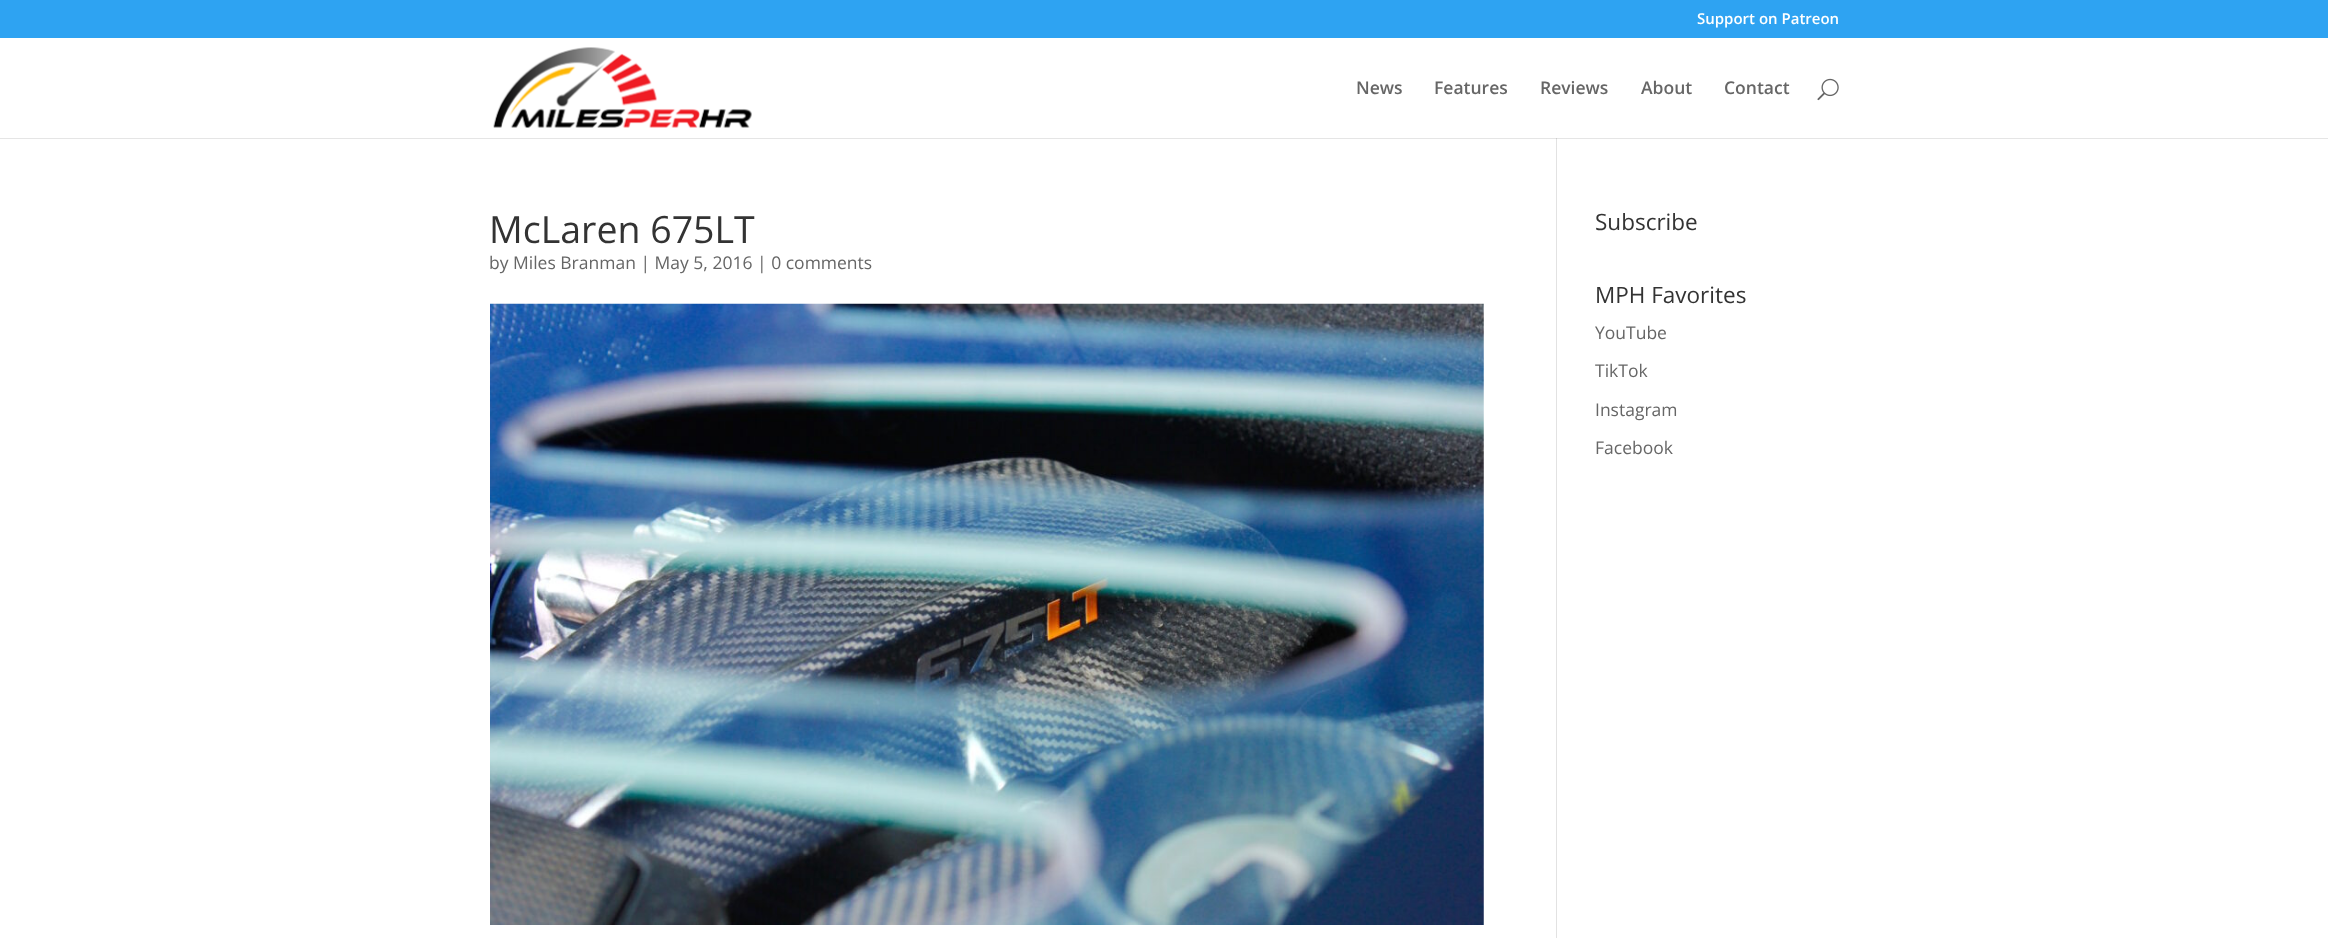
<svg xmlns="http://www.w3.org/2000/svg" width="2328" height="938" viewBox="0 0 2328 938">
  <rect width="100%" height="100%" fill="rgb(255,255,255)"/>
  <rect x="0" y="0" width="2328" height="38" fill="rgb(46,163,242)"/>
  <text x="1697" y="24" font-family="Open Sans" font-size="15" font-weight="600" fill="rgb(255,255,255)">Support on Patreon</text>
  <rect x="1556" y="138" width="1" height="800" fill="rgb(226,226,226)"/>
  <path d="M0 138V139H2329V39V138Z" fill="rgba(0,0,0,0.1)"/>
  <image x="493" y="47" width="259" height="81" href="pic1.png"/>
  <g font-family="Open Sans" font-size="17.5" font-weight="600" fill="rgb(102,102,102)">
    <text x="1356" y="94">News</text>
    <text x="1434" y="94">Features</text>
    <text x="1540" y="94">Reviews</text>
    <text x="1641" y="94">About</text>
    <text x="1724" y="94">Contact</text>
  </g>
  <image x="1817" y="78" width="22" height="23" href="pic2.png"/>
  <text x="489" y="243" font-family="Open Sans" font-size="37.5" fill="rgb(51,51,51)">McLaren 675LT</text>
  <text x="489" y="269" font-family="Open Sans" font-size="17.5" fill="rgb(102,102,102)">by Miles Branman | May 5, 2016 | 0 comments</text>
  <image x="490" y="303" width="994" height="622" href="pic3.png"/>
  <g font-family="Open Sans" font-size="22.5" fill="rgb(51,51,51)">
    <text x="1595" y="230">Subscribe</text>
    <text x="1595" y="303">MPH Favorites</text>
  </g>
  <g font-family="Open Sans" font-size="17.5" fill="rgb(102,102,102)">
    <text x="1595" y="339">YouTube</text>
    <text x="1595" y="377">TikTok</text>
    <text x="1595" y="416">Instagram</text>
    <text x="1595" y="454">Facebook</text>
  </g>
</svg>
